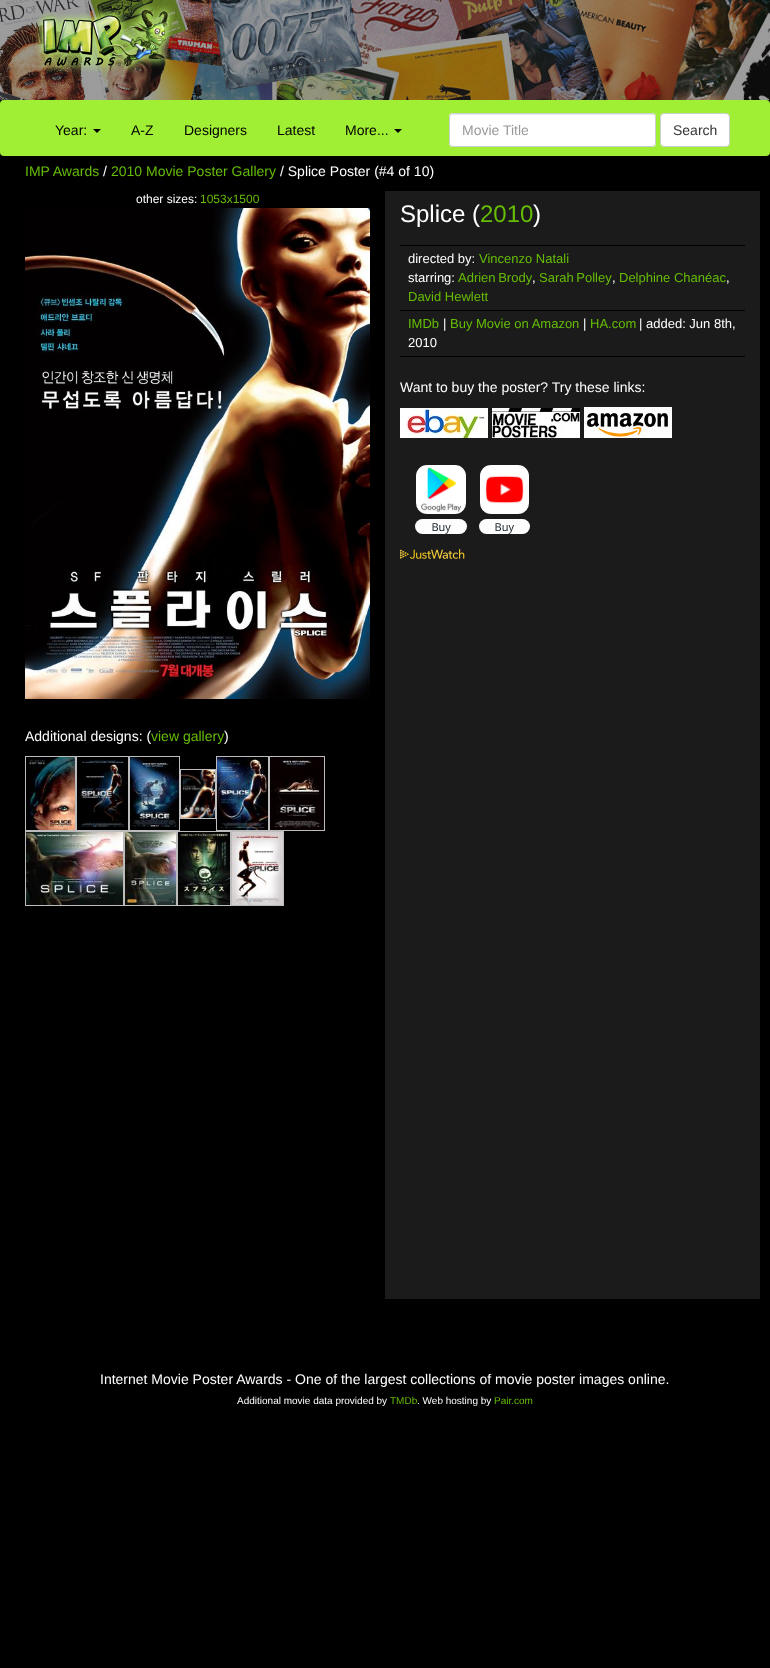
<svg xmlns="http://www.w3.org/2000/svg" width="770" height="1668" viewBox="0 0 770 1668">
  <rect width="100%" height="100%" fill="rgb(0,0,0)"/>
  <image x="0" y="0" width="770" height="100" href="pic1.png"/>
  <image x="35" y="2" width="140" height="72" href="pic2.png"/>
  <rect x="0" y="100" width="770" height="56" rx="4" fill="rgb(161,239,52)"/>
  <text x="55" y="135" font-family="Liberation Sans" font-size="14" fill="rgb(0,0,0)">Year:</text>
  <path d="M93 129H101L97 133Z" fill="rgb(0,0,0)"/>
  <g font-family="Liberation Sans" font-size="14" fill="rgb(0,0,0)">
    <text x="131" y="135">A-Z</text>
    <text x="184" y="135">Designers</text>
    <text x="277" y="135">Latest</text>
    <text x="345" y="135">More...</text>
  </g>
  <path d="M394 129H402L398 133Z" fill="rgb(0,0,0)"/>
  <rect x="449" y="113" width="207" height="34" rx="4" fill="rgb(255,255,255)"/>
  <path d="M453 115H652C654 115 655 116 655 118C655 116 654 114 652 114H453C451 114 450 116 450 118C450 116 451 115 453 115Z" fill="rgb(236,236,236)"/>
  <rect x="449.5" y="113.5" width="206" height="33" rx="3.5" fill="none" stroke="rgb(204,204,204)"/>
  <text x="462" y="135" font-family="Liberation Sans" font-size="14" fill="rgb(153,153,153)">Movie Title</text>
  <rect x="660.5" y="113.5" width="69" height="33" rx="3.5" fill="rgb(255,255,255)" stroke="rgb(204,204,204)"/>
  <text x="673" y="135" font-family="Liberation Sans" font-size="14" fill="rgb(51,51,51)">Search</text>
  <text x="25" y="176" font-family="Liberation Sans" font-size="14" fill="rgb(102,189,4)">IMP Awards</text>
  <text x="103" y="176" font-family="Liberation Sans" font-size="14" fill="rgb(255,255,255)">/</text>
  <text x="111" y="176" font-family="Liberation Sans" font-size="14" fill="rgb(102,189,4)">2010 Movie Poster Gallery</text>
  <text x="280" y="176" font-family="Liberation Sans" font-size="14" fill="rgb(255,255,255)">/ Splice Poster (#4 of 10)</text>
  <text x="136" y="203" font-family="Liberation Sans" font-size="12" fill="rgb(255,255,255)">other sizes:</text>
  <text x="200" y="203" font-family="Liberation Sans" font-size="12" fill="rgb(102,189,4)">1053x1500</text>
  <image x="25" y="208" width="345" height="491" href="pic3.png"/>
  <text x="25" y="741" font-family="Liberation Sans" font-size="14" fill="rgb(255,255,255)">Additional designs: (</text>
  <text x="151" y="741" font-family="Liberation Sans" font-size="14" fill="rgb(102,189,4)">view gallery</text>
  <text x="224" y="741" font-family="Liberation Sans" font-size="14" fill="rgb(255,255,255)">)</text>
  <rect x="25.5" y="756.5" width="50" height="74" fill="none" stroke="rgb(188,188,188)"/>
  <rect x="76.5" y="756.5" width="52" height="74" fill="none" stroke="rgb(188,188,188)"/>
  <rect x="129.5" y="756.5" width="50" height="74" fill="none" stroke="rgb(188,188,188)"/>
  <rect x="216.5" y="756.5" width="52" height="74" fill="none" stroke="rgb(188,188,188)"/>
  <rect x="269.5" y="756.5" width="55" height="74" fill="none" stroke="rgb(188,188,188)"/>
  <image x="26" y="757" width="49" height="73" href="pic4.png"/>
  <image x="77" y="757" width="47" height="70" href="pic5.png"/>
  <image x="130" y="757" width="49" height="70" href="pic6.png"/>
  <rect x="180.5" y="769.5" width="35" height="49" fill="none" stroke="rgb(188,188,188)"/>
  <image x="217" y="757" width="51" height="73" href="pic7.png"/>
  <image x="270" y="757" width="54" height="73" href="pic8.png"/>
  <image x="181" y="770" width="34" height="48" href="pic9.png"/>
  <rect x="25.5" y="831.5" width="98" height="74" fill="none" stroke="rgb(188,188,188)"/>
  <rect x="124.5" y="831.5" width="52" height="74" fill="none" stroke="rgb(188,188,188)"/>
  <rect x="177.5" y="831.5" width="53" height="74" fill="none" stroke="rgb(188,188,188)"/>
  <rect x="231.5" y="831.5" width="52" height="74" fill="none" stroke="rgb(188,188,188)"/>
  <image x="26" y="832" width="97" height="73" href="pic10.png"/>
  <image x="125" y="832" width="51" height="73" href="pic11.png"/>
  <image x="178" y="832" width="52" height="73" href="pic12.png"/>
  <image x="232" y="832" width="51" height="73" href="pic13.png"/>
  <rect x="385" y="191" width="375" height="1108" fill="rgb(27,27,27)"/>
  <text x="400" y="222" font-family="Liberation Sans" font-size="24" fill="rgb(255,255,255)">Splice (</text>
  <text x="480" y="222" font-family="Liberation Sans" font-size="24" fill="rgb(102,189,4)">2010</text>
  <text x="533" y="222" font-family="Liberation Sans" font-size="24" fill="rgb(255,255,255)">)</text>
  <rect x="400" y="245" width="345" height="1" fill="rgb(0,0,0)"/>
  <rect x="400" y="310" width="345" height="1" fill="rgb(0,0,0)"/>
  <text x="408" y="263" font-family="Liberation Sans" font-size="13" fill="rgb(255,255,255)">directed by:</text>
  <text x="479" y="263" font-family="Liberation Sans" font-size="13" fill="rgb(102,189,4)">Vincenzo Natali</text>
  <text x="408" y="282" font-family="Liberation Sans" font-size="13" fill="rgb(255,255,255)">starring:</text>
  <text x="458" y="282" word-spacing="-1" font-family="Liberation Sans" font-size="13" fill="rgb(102,189,4)">Adrien Brody</text>
  <text x="532" y="282" font-family="Liberation Sans" font-size="13" fill="rgb(255,255,255)">,</text>
  <text x="539" y="282" word-spacing="-1" font-family="Liberation Sans" font-size="13" fill="rgb(102,189,4)">Sarah Polley</text>
  <text x="612" y="282" font-family="Liberation Sans" font-size="13" fill="rgb(255,255,255)">,</text>
  <text x="619" y="282" font-family="Liberation Sans" font-size="13" fill="rgb(102,189,4)">Delphine Chanéac</text>
  <text x="726" y="282" font-family="Liberation Sans" font-size="13" fill="rgb(255,255,255)">,</text>
  <text x="408" y="301" font-family="Liberation Sans" font-size="13" fill="rgb(102,189,4)">David Hewlett</text>
  <rect x="400" y="356" width="345" height="1" fill="rgb(0,0,0)"/>
  <text x="408" y="328" font-family="Liberation Sans" font-size="13" fill="rgb(102,189,4)">IMDb</text>
  <text x="443" y="328" font-family="Liberation Sans" font-size="13" fill="rgb(255,255,255)">|</text>
  <text x="450" y="328" font-family="Liberation Sans" font-size="13" fill="rgb(102,189,4)">Buy Movie on Amazon</text>
  <text x="583" y="328" font-family="Liberation Sans" font-size="13" fill="rgb(255,255,255)">|</text>
  <text x="590" y="328" font-family="Liberation Sans" font-size="13" fill="rgb(102,189,4)">HA.com</text>
  <g font-family="Liberation Sans" font-size="13" fill="rgb(255,255,255)">
    <text x="639" y="328">| added: Jun 8th,</text>
    <text x="408" y="347">2010</text>
  </g>
  <text x="400" y="392" font-family="Liberation Sans" font-size="14" fill="rgb(255,255,255)">Want to buy the poster? Try these links:</text>
  <image x="400" y="408" width="88" height="30" href="pic14.png"/>
  <image x="492" y="408" width="88" height="30" href="pic15.png"/>
  <image x="584" y="407" width="88" height="31" href="pic16.png"/>
  <image x="415" y="465" width="115" height="69" href="pic17.png"/>
  <image x="400" y="549" width="65" height="10" href="pic18.png"/>
  <text x="100" y="1384" font-family="Liberation Sans" font-size="14" fill="rgb(255,255,255)">Internet Movie Poster Awards - One of the largest collections of movie poster images online.</text>
  <text x="237" y="1404" font-family="Liberation Sans" font-size="10" fill="rgb(255,255,255)">Additional movie data provided by</text>
  <text x="390" y="1404" font-family="Liberation Sans" font-size="10" fill="rgb(102,189,4)">TMDb</text>
  <text x="417" y="1404" font-family="Liberation Sans" font-size="10" fill="rgb(255,255,255)">. Web hosting by</text>
  <text x="494" y="1404" font-family="Liberation Sans" font-size="10" fill="rgb(102,189,4)">Pair.com</text>
</svg>
